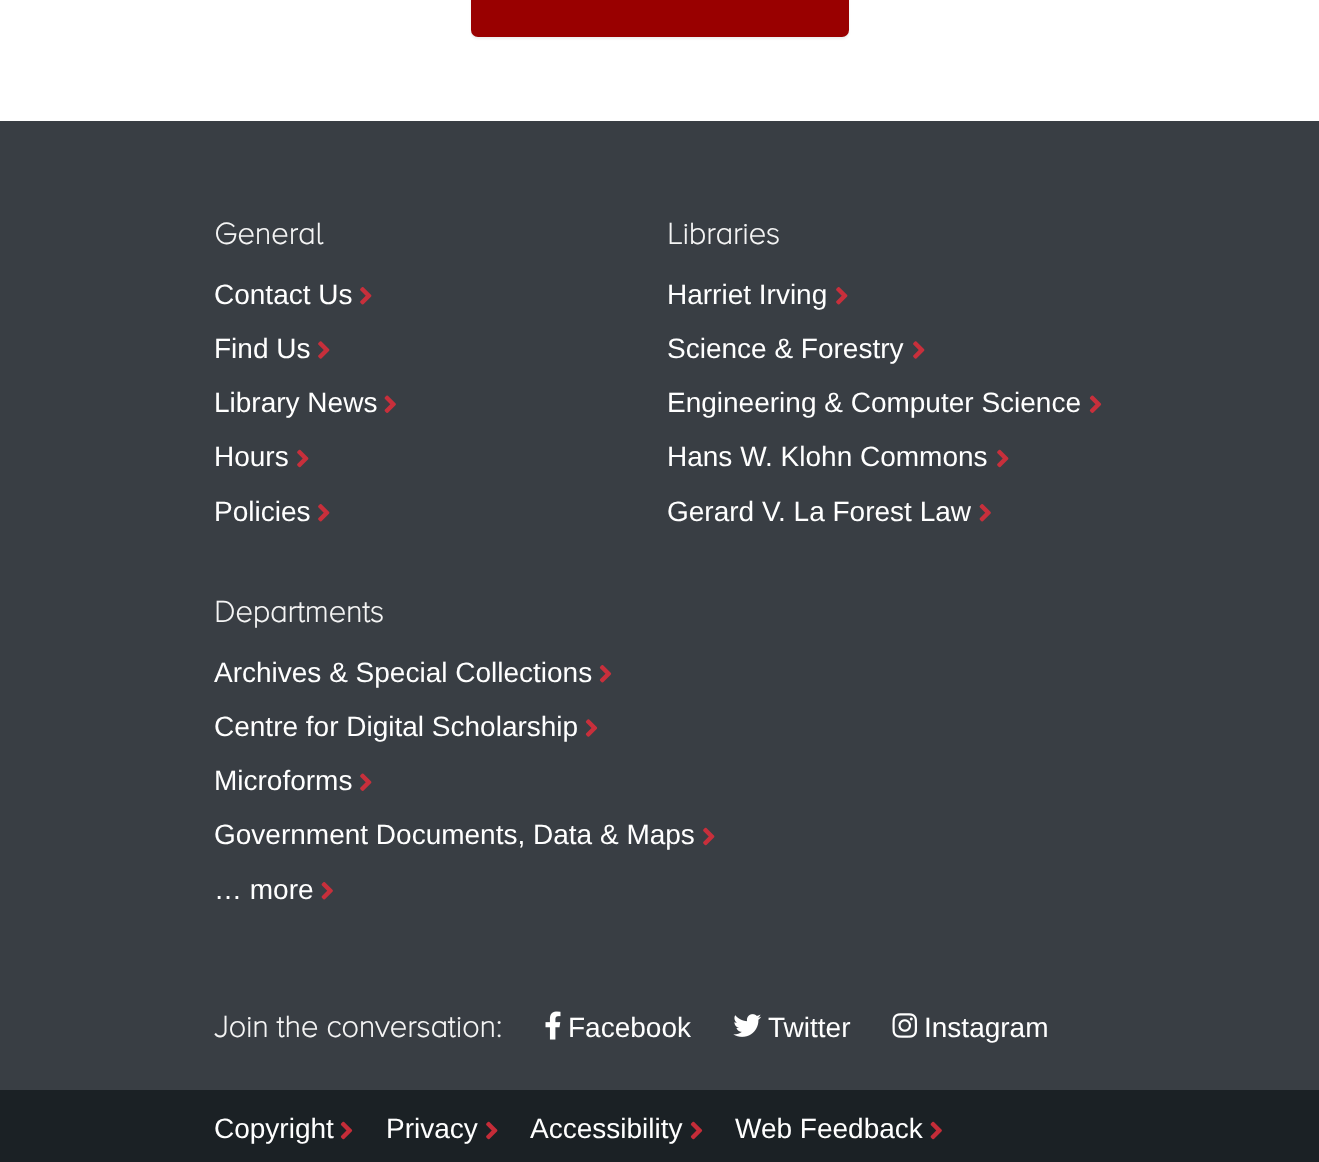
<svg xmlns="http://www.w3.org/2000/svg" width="1319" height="1162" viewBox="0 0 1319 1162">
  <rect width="100%" height="100%" fill="rgb(255,255,255)"/>
  <rect x="471" y="-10" width="378" height="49" rx="7" fill="rgba(0,0,0,0.07)" filter="blur(1px)"/>
  <rect x="472" y="-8" width="376" height="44" rx="6" fill="rgb(153,0,0)" stroke="rgb(153,0,0)" stroke-width="2"/>
  <rect x="0" y="121" width="1319" height="969" fill="rgb(57,62,68)"/>
  <text x="214" y="244" font-family="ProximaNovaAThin" font-size="30.75" font-weight="bold" fill="rgb(244,244,244)">General</text>
  <text x="214" y="304" font-family="Liberation Sans" font-size="28" fill="rgb(255,255,255)">Contact Us</text>
  <image x="360" y="287" width="12" height="18" href="pic1.png"/>
  <text x="214" y="358" font-family="Liberation Sans" font-size="28" fill="rgb(255,255,255)">Find Us</text>
  <image x="318" y="341" width="12" height="18" href="pic2.png"/>
  <text x="214" y="412" font-family="Liberation Sans" font-size="28" fill="rgb(255,255,255)">Library News</text>
  <image x="384" y="395" width="12" height="18" href="pic3.png"/>
  <text x="214" y="466" font-family="Liberation Sans" font-size="28" fill="rgb(255,255,255)">Hours</text>
  <image x="297" y="449" width="12" height="19" href="pic4.png"/>
  <text x="214" y="521" font-family="Liberation Sans" font-size="28" fill="rgb(255,255,255)">Policies</text>
  <image x="318" y="504" width="12" height="18" href="pic1.png"/>
  <text x="667" y="244" font-family="ProximaNovaAThin" font-size="30.75" font-weight="bold" fill="rgb(244,244,244)">Libraries</text>
  <text x="667" y="304" font-family="Liberation Sans" font-size="28" fill="rgb(255,255,255)">Harriet Irving</text>
  <image x="836" y="287" width="12" height="18" href="pic1.png"/>
  <text x="667" y="358" font-family="Liberation Sans" font-size="28" fill="rgb(255,255,255)">Science &amp; Forestry</text>
  <image x="913" y="341" width="12" height="18" href="pic2.png"/>
  <text x="667" y="412" font-family="Liberation Sans" font-size="28" fill="rgb(255,255,255)">Engineering &amp; Computer Science</text>
  <image x="1089" y="395" width="13" height="18" href="pic5.png"/>
  <text x="667" y="466" font-family="Liberation Sans" font-size="28" fill="rgb(255,255,255)">Hans W. Klohn Commons</text>
  <image x="997" y="449" width="12" height="19" href="pic4.png"/>
  <text x="667" y="521" font-family="Liberation Sans" font-size="28" fill="rgb(255,255,255)">Gerard V. La Forest Law</text>
  <image x="979" y="504" width="12" height="18" href="pic6.png"/>
  <text x="214" y="622" font-family="ProximaNovaAThin" font-size="30.75" font-weight="bold" fill="rgb(244,244,244)">Departments</text>
  <text x="214" y="682" font-family="Liberation Sans" font-size="28" fill="rgb(255,255,255)">Archives &amp; Special Collections</text>
  <image x="599" y="665" width="13" height="18" href="pic7.png"/>
  <text x="214" y="736" font-family="Liberation Sans" font-size="28" fill="rgb(255,255,255)">Centre for Digital Scholarship</text>
  <image x="585" y="719" width="13" height="18" href="pic8.png"/>
  <text x="214" y="790" font-family="Liberation Sans" font-size="28" fill="rgb(255,255,255)">Microforms</text>
  <image x="360" y="773" width="12" height="18" href="pic9.png"/>
  <text x="214" y="844" font-family="Liberation Sans" font-size="28" fill="rgb(255,255,255)">Government Documents, Data &amp; Maps</text>
  <image x="703" y="827" width="12" height="19" href="pic4.png"/>
  <text x="214" y="899" font-family="Liberation Sans" font-size="28" fill="rgb(255,255,255)">… more</text>
  <image x="321" y="882" width="12" height="18" href="pic6.png"/>
  <text x="214" y="1037" font-family="ProximaNovaAThin" font-size="30.75" font-weight="bold" fill="rgb(244,244,244)">Join the conversation:</text>
  <image x="545" y="1011" width="16" height="29" href="pic10.png"/>
  <text x="568" y="1037" font-family="Liberation Sans" font-size="28" fill="rgb(255,255,255)">Facebook</text>
  <image x="733" y="1014" width="29" height="23" href="pic11.png"/>
  <text x="768" y="1037" font-family="Liberation Sans" font-size="28" fill="rgb(255,255,255)">Twitter</text>
  <image x="892" y="1013" width="25" height="25" href="pic12.png"/>
  <text x="924" y="1037" font-family="Liberation Sans" font-size="28" fill="rgb(255,255,255)">Instagram</text>
  <rect x="0" y="1090" width="1319" height="72" fill="rgb(27,33,37)"/>
  <text x="214" y="1138" font-family="Liberation Sans" font-size="28" fill="rgb(255,255,255)">Copyright</text>
  <image x="340" y="1121" width="13" height="19" href="pic13.png"/>
  <text x="386" y="1138" font-family="Liberation Sans" font-size="28" fill="rgb(255,255,255)">Privacy</text>
  <image x="486" y="1121" width="12" height="19" href="pic14.png"/>
  <text x="530" y="1138" font-family="Liberation Sans" font-size="28" fill="rgb(255,255,255)">Accessibility</text>
  <image x="690" y="1121" width="13" height="19" href="pic13.png"/>
  <text x="735" y="1138" font-family="Liberation Sans" font-size="28" fill="rgb(255,255,255)">Web Feedback</text>
  <image x="930" y="1121" width="12" height="19" href="pic15.png"/>
</svg>
